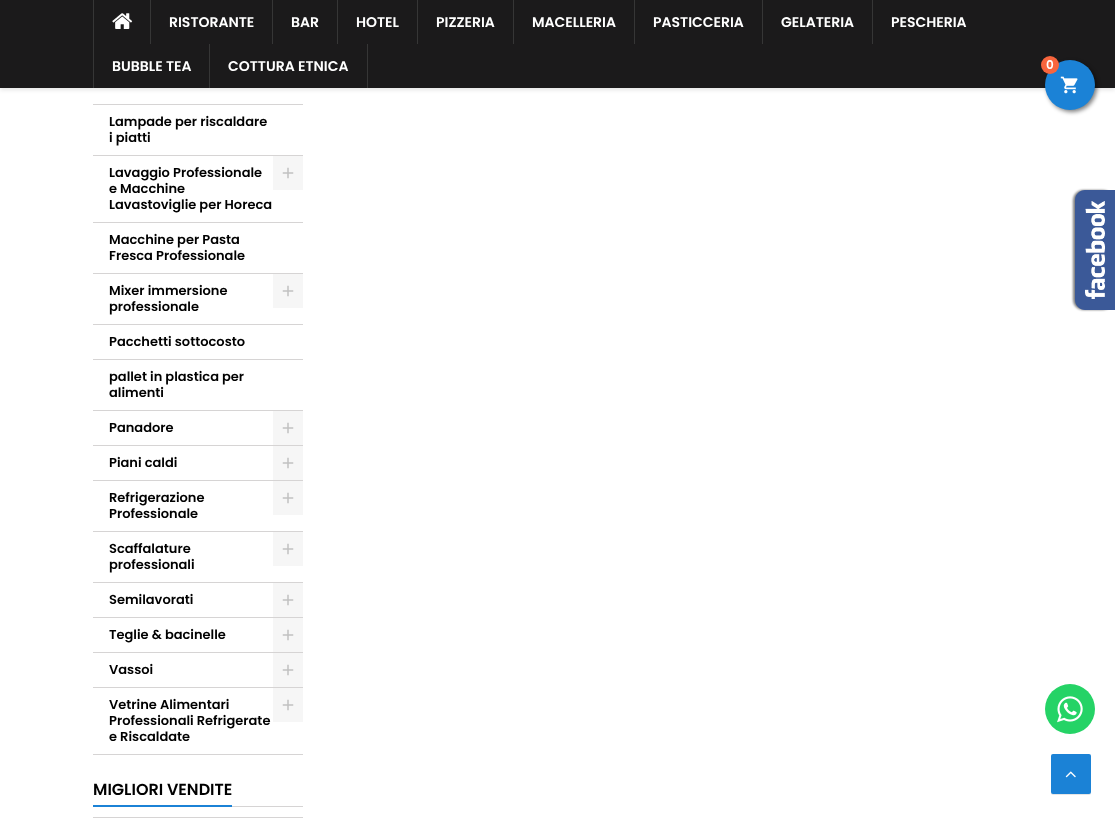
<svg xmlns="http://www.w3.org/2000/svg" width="1115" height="818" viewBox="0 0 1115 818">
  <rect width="100%" height="100%" fill="rgb(255,255,255)"/>
  <rect x="0" y="2" width="1115" height="88" fill="rgba(0,0,0,0.1)" filter="blur(2px)"/>
  <rect x="0" y="0" width="1115" height="88" fill="rgb(27,26,27)"/>
  <rect x="93" y="0" width="1" height="88" fill="rgb(54,54,54)"/>
  <image x="112" y="13" width="21" height="16" href="pic1.png"/>
  <rect x="150" y="0" width="1" height="44" fill="rgb(54,54,54)"/>
  <text x="169" y="27" font-family="Poppins" font-size="14" font-weight="600" fill="rgb(255,255,255)">RISTORANTE</text>
  <rect x="272" y="0" width="1" height="44" fill="rgb(54,54,54)"/>
  <text x="291" y="27" font-family="Poppins" font-size="14" font-weight="600" fill="rgb(255,255,255)">BAR</text>
  <rect x="337" y="0" width="1" height="44" fill="rgb(54,54,54)"/>
  <text x="356" y="27" font-family="Poppins" font-size="14" font-weight="600" fill="rgb(255,255,255)">HOTEL</text>
  <rect x="417" y="0" width="1" height="44" fill="rgb(54,54,54)"/>
  <text x="436" y="27" font-family="Poppins" font-size="14" font-weight="600" fill="rgb(255,255,255)">PIZZERIA</text>
  <rect x="513" y="0" width="1" height="44" fill="rgb(54,54,54)"/>
  <text x="532" y="27" font-family="Poppins" font-size="14" font-weight="600" fill="rgb(255,255,255)">MACELLERIA</text>
  <rect x="634" y="0" width="1" height="44" fill="rgb(54,54,54)"/>
  <text x="653" y="27" font-family="Poppins" font-size="14" font-weight="600" fill="rgb(255,255,255)">PASTICCERIA</text>
  <rect x="762" y="0" width="1" height="44" fill="rgb(54,54,54)"/>
  <text x="781" y="27" font-family="Poppins" font-size="14" font-weight="600" fill="rgb(255,255,255)">GELATERIA</text>
  <rect x="872" y="0" width="1" height="44" fill="rgb(54,54,54)"/>
  <g font-family="Poppins" font-size="14" font-weight="600" fill="rgb(255,255,255)">
    <text x="891" y="27">PESCHERIA</text>
    <text x="112" y="71">BUBBLE TEA</text>
  </g>
  <rect x="367" y="44" width="1" height="44" fill="rgb(54,54,54)"/>
  <rect x="209" y="44" width="1" height="44" fill="rgb(54,54,54)"/>
  <text x="228" y="71" font-family="Poppins" font-size="14" font-weight="600" fill="rgb(255,255,255)">COTTURA ETNICA</text>
  <rect x="1047" y="62" width="50" height="50" rx="25" fill="rgba(0,0,0,0.5)" filter="blur(2px)"/>
  <circle cx="1070" cy="85" r="25" fill="rgb(27,130,214)"/>
  <circle cx="1050" cy="65" r="9" fill="rgb(248,101,61)"/>
  <text x="1046" y="69" font-family="Poppins" font-size="12" font-weight="600" fill="rgb(255,255,255)">0</text>
  <image x="1060" y="76" width="18" height="18" href="pic2.png"/>
  <rect x="93" y="104" width="210" height="1" fill="rgb(214,212,212)"/>
  <rect x="93" y="155" width="210" height="1" fill="rgb(214,212,212)"/>
  <g font-family="Poppins" font-size="13" font-weight="600" fill="rgb(0,0,0)">
    <text>
      <tspan x="109" y="126">Lampade per riscaldare</tspan>
      <tspan x="109" y="142">i piatti</tspan>
    </text>
  </g>
  <rect x="93" y="222" width="210" height="1" fill="rgb(214,212,212)"/>
  <g font-family="Poppins" font-size="13" font-weight="600" fill="rgb(0,0,0)">
    <text>
      <tspan x="109" y="177">Lavaggio Professionale</tspan>
      <tspan x="109" y="193">e Macchine</tspan>
      <tspan x="109" y="209">Lavastoviglie per Horeca</tspan>
    </text>
  </g>
  <rect x="273" y="156" width="30" height="34" fill="rgb(246,246,246)"/>
  <image x="282" y="167" width="12" height="12" href="pic3.png"/>
  <rect x="93" y="273" width="210" height="1" fill="rgb(214,212,212)"/>
  <g font-family="Poppins" font-size="13" font-weight="600" fill="rgb(0,0,0)">
    <text>
      <tspan x="109" y="244">Macchine per Pasta</tspan>
      <tspan x="109" y="260">Fresca Professionale</tspan>
    </text>
  </g>
  <rect x="93" y="324" width="210" height="1" fill="rgb(214,212,212)"/>
  <g font-family="Poppins" font-size="13" font-weight="600" fill="rgb(0,0,0)">
    <text>
      <tspan x="109" y="295">Mixer immersione</tspan>
      <tspan x="109" y="311">professionale</tspan>
    </text>
  </g>
  <rect x="273" y="274" width="30" height="34" fill="rgb(246,246,246)"/>
  <image x="282" y="285" width="12" height="12" href="pic3.png"/>
  <rect x="93" y="359" width="210" height="1" fill="rgb(214,212,212)"/>
  <text x="109" y="346" font-family="Poppins" font-size="13" font-weight="600" fill="rgb(0,0,0)">Pacchetti sottocosto</text>
  <rect x="93" y="410" width="210" height="1" fill="rgb(214,212,212)"/>
  <g font-family="Poppins" font-size="13" font-weight="600" fill="rgb(0,0,0)">
    <text>
      <tspan x="109" y="381">pallet in plastica per</tspan>
      <tspan x="109" y="397">alimenti</tspan>
    </text>
  </g>
  <rect x="93" y="445" width="210" height="1" fill="rgb(214,212,212)"/>
  <text x="109" y="432" font-family="Poppins" font-size="13" font-weight="600" fill="rgb(0,0,0)">Panadore</text>
  <rect x="273" y="411" width="30" height="34" fill="rgb(246,246,246)"/>
  <image x="282" y="422" width="12" height="12" href="pic3.png"/>
  <rect x="93" y="480" width="210" height="1" fill="rgb(214,212,212)"/>
  <text x="109" y="467" font-family="Poppins" font-size="13" font-weight="600" fill="rgb(0,0,0)">Piani caldi</text>
  <rect x="273" y="446" width="30" height="34" fill="rgb(246,246,246)"/>
  <image x="282" y="457" width="12" height="12" href="pic3.png"/>
  <rect x="93" y="531" width="210" height="1" fill="rgb(214,212,212)"/>
  <g font-family="Poppins" font-size="13" font-weight="600" fill="rgb(0,0,0)">
    <text>
      <tspan x="109" y="502">Refrigerazione</tspan>
      <tspan x="109" y="518">Professionale</tspan>
    </text>
  </g>
  <rect x="273" y="481" width="30" height="34" fill="rgb(246,246,246)"/>
  <image x="282" y="492" width="12" height="12" href="pic3.png"/>
  <rect x="93" y="582" width="210" height="1" fill="rgb(214,212,212)"/>
  <g font-family="Poppins" font-size="13" font-weight="600" fill="rgb(0,0,0)">
    <text>
      <tspan x="109" y="553">Scaffalature</tspan>
      <tspan x="109" y="569">professionali</tspan>
    </text>
  </g>
  <rect x="273" y="532" width="30" height="34" fill="rgb(246,246,246)"/>
  <image x="282" y="543" width="12" height="12" href="pic3.png"/>
  <rect x="93" y="617" width="210" height="1" fill="rgb(214,212,212)"/>
  <text x="109" y="604" font-family="Poppins" font-size="13" font-weight="600" fill="rgb(0,0,0)">Semilavorati</text>
  <rect x="273" y="583" width="30" height="34" fill="rgb(246,246,246)"/>
  <image x="282" y="594" width="12" height="12" href="pic3.png"/>
  <rect x="93" y="652" width="210" height="1" fill="rgb(214,212,212)"/>
  <text x="109" y="639" font-family="Poppins" font-size="13" font-weight="600" fill="rgb(0,0,0)">Teglie &amp; bacinelle</text>
  <rect x="273" y="618" width="30" height="34" fill="rgb(246,246,246)"/>
  <image x="282" y="629" width="12" height="12" href="pic3.png"/>
  <rect x="93" y="687" width="210" height="1" fill="rgb(214,212,212)"/>
  <text x="109" y="674" font-family="Poppins" font-size="13" font-weight="600" fill="rgb(0,0,0)">Vassoi</text>
  <rect x="273" y="653" width="30" height="34" fill="rgb(246,246,246)"/>
  <image x="282" y="664" width="12" height="12" href="pic3.png"/>
  <rect x="93" y="754" width="210" height="1" fill="rgb(214,212,212)"/>
  <g font-family="Poppins" font-size="13" font-weight="600" fill="rgb(0,0,0)">
    <text>
      <tspan x="109" y="709">Vetrine Alimentari</tspan>
      <tspan x="109" y="725">Professionali Refrigerate</tspan>
      <tspan x="109" y="741">e Riscaldate</tspan>
    </text>
  </g>
  <rect x="273" y="688" width="30" height="34" fill="rgb(246,246,246)"/>
  <image x="282" y="699" width="12" height="12" href="pic3.png"/>
  <rect x="232" y="806" width="71" height="1" fill="rgb(214,212,212)"/>
  <rect x="93" y="805" width="139" height="2" fill="rgb(27,130,214)"/>
  <text x="93" y="795" font-family="Poppins" font-size="16" font-weight="600" fill="rgb(0,0,0)">MIGLIORI VENDITE</text>
  <rect x="93.5" y="817.5" width="209" height="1" fill="none" stroke="rgb(214,212,212)"/>
  <rect x="1073" y="190" width="40" height="120" rx="10" fill="rgba(0,0,0,0.5)" filter="blur(1px)"/>
  <path d="M1085 190H1115V310H1085C1079.5 310 1075 305.5 1075 300V200C1075 194.5 1079.5 190 1085 190Z" fill="rgb(59,89,152)"/>
  <image x="1085" y="201" width="20" height="98" href="pic4.png"/>
  <circle cx="1070" cy="709" r="25" fill="rgb(37,211,102)"/>
  <image x="1057" y="696" width="26" height="27" href="pic5.png"/>
  <rect x="1051" y="755" width="40" height="40" rx="2" fill="rgba(0,0,0,0.1)" filter="blur(0.5px)"/>
  <rect x="1051" y="754" width="40" height="40" rx="2" fill="rgb(27,130,214)"/>
  <image x="1065" y="771" width="11" height="7" href="pic6.png"/>
</svg>
